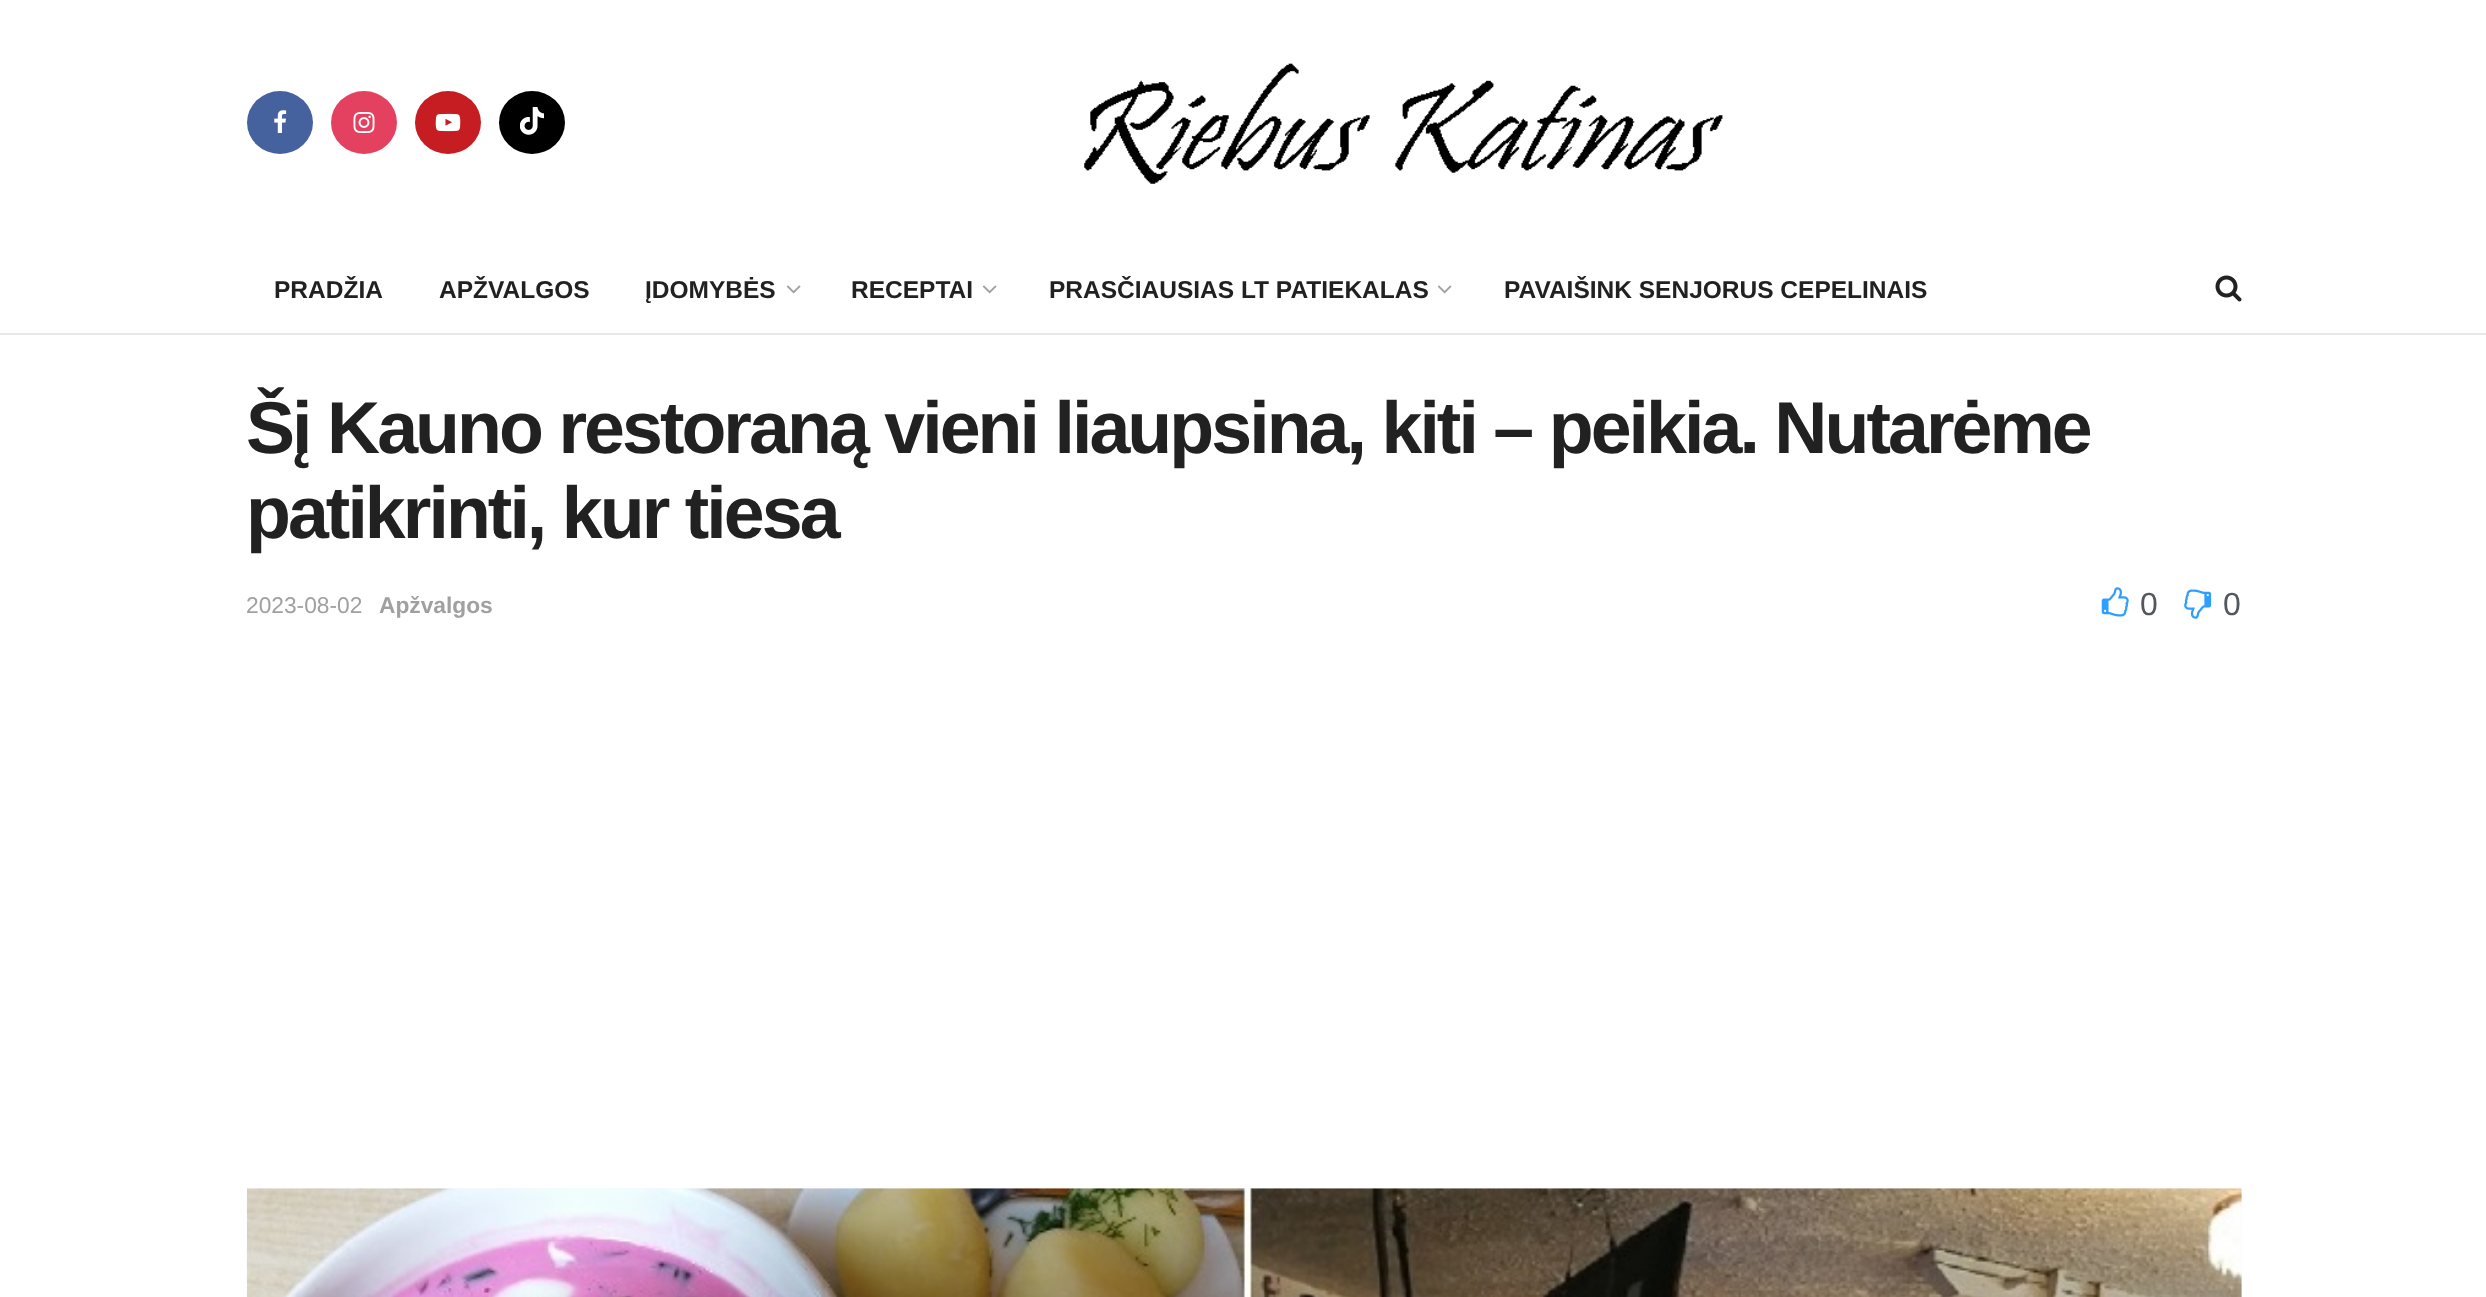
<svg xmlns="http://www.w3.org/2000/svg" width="2486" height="1297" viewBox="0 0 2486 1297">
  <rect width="100%" height="100%" fill="rgb(255,255,255)"/>
  <ellipse cx="280" cy="122.5" rx="33" ry="31.5" fill="rgb(69,98,159)"/>
  <image x="274" y="110" width="13" height="23" href="pic1.png"/>
  <ellipse cx="364" cy="122.5" rx="33" ry="31.5" fill="rgb(228,64,95)"/>
  <image x="353" y="112" width="22" height="21" href="pic2.png"/>
  <ellipse cx="448" cy="122.5" rx="33" ry="31.5" fill="rgb(198,29,35)"/>
  <image x="435" y="113" width="26" height="19" href="pic3.png"/>
  <ellipse cx="532" cy="122.5" rx="33" ry="31.5" fill="rgb(0,0,0)"/>
  <image x="520" y="107" width="24" height="28" href="pic4.png"/>
  <image x="1084" y="63" width="639" height="121" href="pic5.png"/>
  <rect x="0" y="333" width="2486" height="2" fill="rgb(232,232,232)"/>
  <g font-family="Liberation Sans" font-size="24.5" font-weight="bold" fill="rgb(33,33,33)">
    <text x="274" y="298">PRADŽIA</text>
    <text x="439" y="298">APŽVALGOS</text>
    <text x="645" y="298">ĮDOMYBĖS</text>
  </g>
  <image x="786" y="285" width="15" height="9" href="pic6.png"/>
  <text x="851" y="298" font-family="Liberation Sans" font-size="24.5" font-weight="bold" fill="rgb(33,33,33)">RECEPTAI</text>
  <image x="982" y="285" width="15" height="9" href="pic6.png"/>
  <text x="1049" y="298" font-family="Liberation Sans" font-size="24.5" font-weight="bold" fill="rgb(33,33,33)">PRASČIAUSIAS LT PATIEKALAS</text>
  <image x="1437" y="285" width="15" height="9" href="pic6.png"/>
  <text x="1504" y="298" font-family="Liberation Sans" font-size="24.5" font-weight="bold" fill="rgb(33,33,33)">PAVAIŠINK SENJORUS CEPELINAIS</text>
  <image x="2215" y="275" width="27" height="27" href="pic7.png"/>
  <g font-family="Liberation Sans" font-size="73.5" font-weight="bold" letter-spacing="-2.95" fill="rgb(33,33,33)">
    <text>
      <tspan x="246" y="453">Šį Kauno restoraną vieni liaupsina, kiti – peikia. Nutarėme</tspan>
      <tspan x="246" y="538">patikrinti, kur tiesa</tspan>
    </text>
  </g>
  <text x="246" y="613" font-family="Liberation Sans" font-size="22.75" fill="rgb(160,160,160)">2023-08-02</text>
  <text x="379" y="613" font-family="Liberation Sans" font-size="22.75" font-weight="bold" fill="rgb(160,160,160)">Apžvalgos</text>
  <image x="2101" y="587" width="28" height="30" href="pic8.png"/>
  <text x="2140" y="615" font-family="Liberation Sans" font-size="32" fill="rgb(83,88,92)">0</text>
  <image x="2184" y="589" width="28" height="30" href="pic9.png"/>
  <text x="2223" y="615" font-family="Liberation Sans" font-size="32" fill="rgb(83,88,92)">0</text>
  <rect x="247" y="1188" width="1995" height="109" fill="rgb(247,247,247)"/>
  <image x="246" y="1188" width="1996" height="109" href="pic10.png"/>
</svg>
